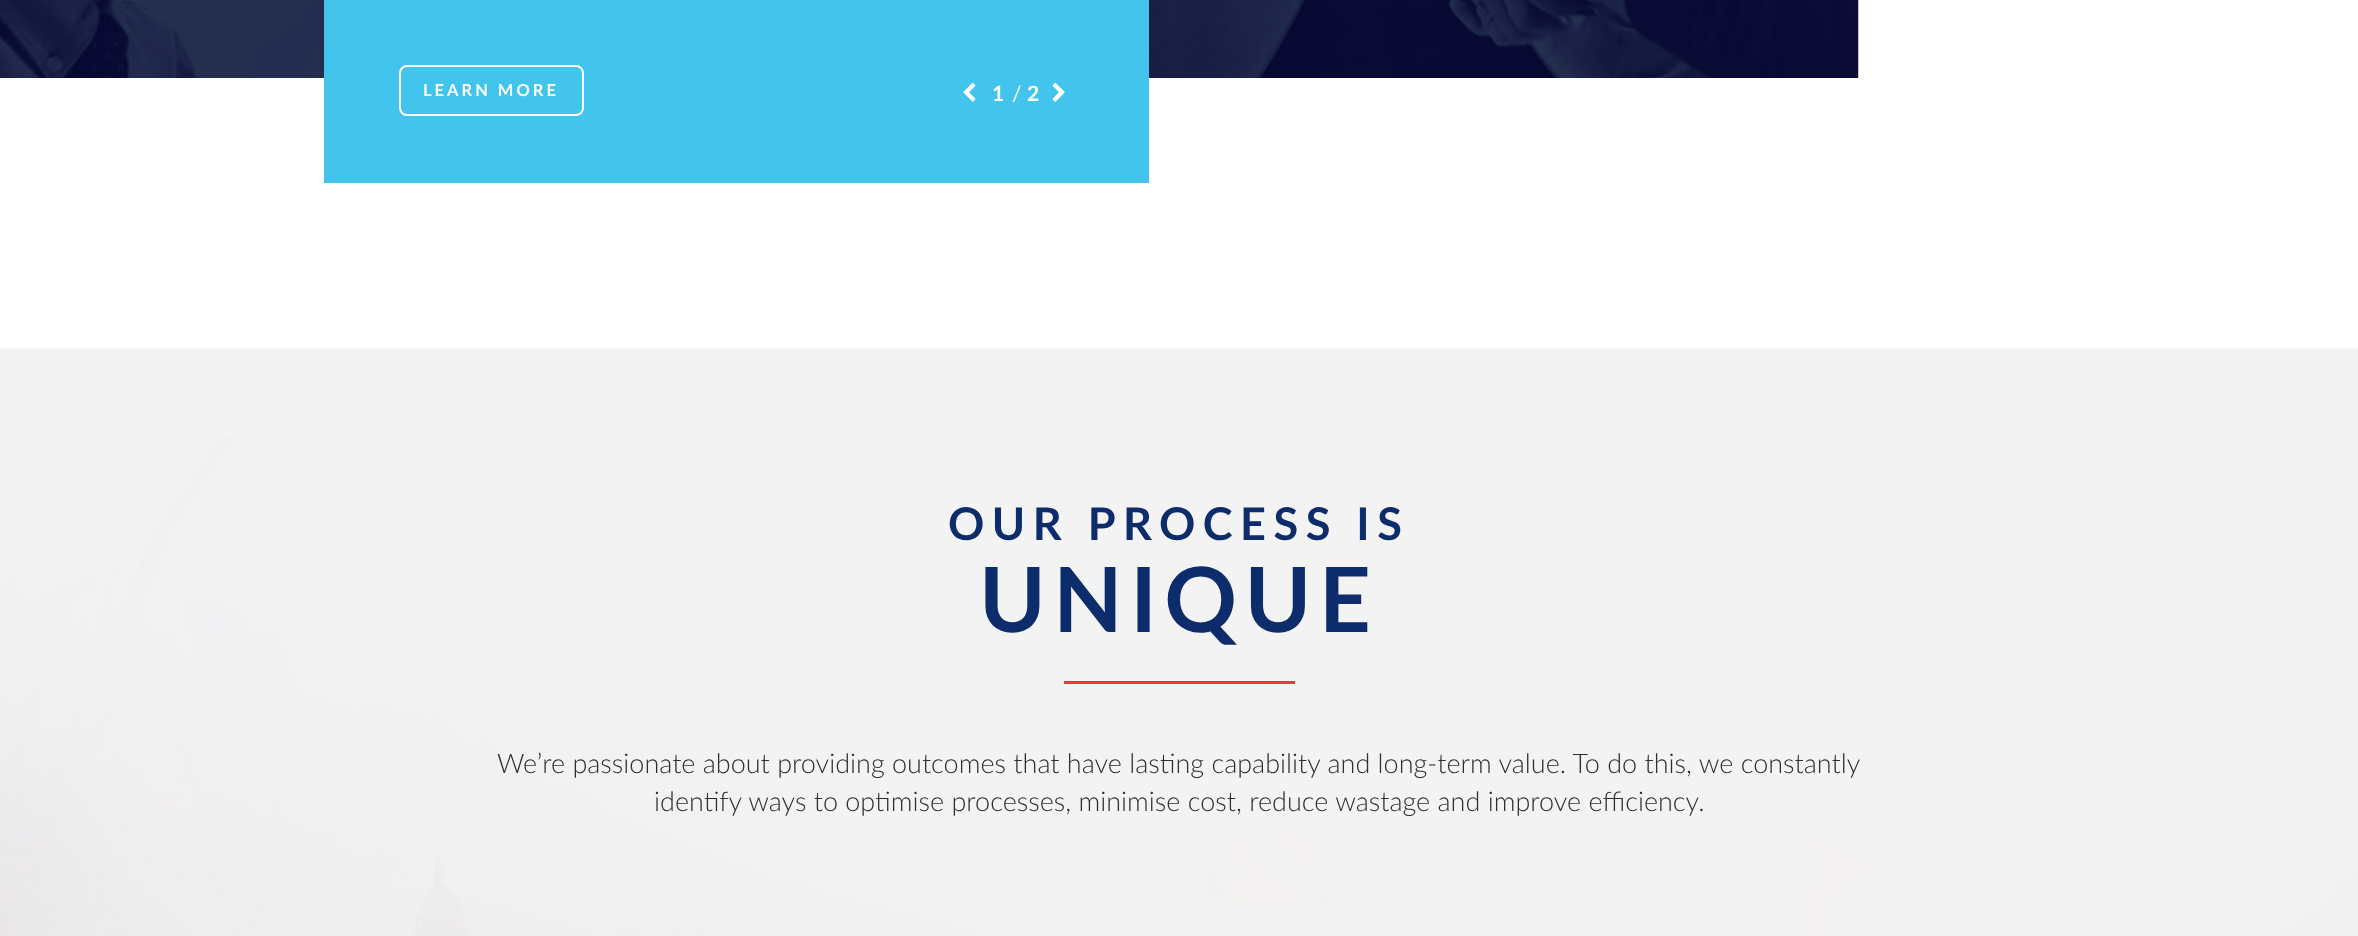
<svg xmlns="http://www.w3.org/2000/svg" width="2358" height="936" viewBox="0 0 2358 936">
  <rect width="100%" height="100%" fill="rgb(255,255,255)"/>
  <image x="0" y="0" width="1859" height="78" href="pic1.png"/>
  <rect x="324" y="0" width="825" height="183" fill="rgb(67,196,236)"/>
  <rect x="400" y="66" width="183" height="49" rx="7" fill="none" stroke="rgb(255,255,255)" stroke-width="2"/>
  <text x="423" y="96" font-family="Lato" font-size="16.5" font-weight="bold" letter-spacing="3" fill="rgb(255,255,255)">LEARN MORE</text>
  <image x="963" y="82" width="13" height="20" href="pic2.png"/>
  <image x="1052" y="82" width="13" height="20" href="pic3.png"/>
  <text x="992" y="101" font-family="Lato" font-size="21" font-weight="bold" fill="rgb(255,255,255)">1</text>
  <text x="1012" y="101" font-family="Lato" font-size="21" fill="rgb(255,255,255)">/</text>
  <text x="1027" y="101" font-family="Lato" font-size="21" font-weight="bold" fill="rgb(255,255,255)">2</text>
  <image x="0" y="348" width="2358" height="588" href="pic4.png"/>
  <text x="948" y="540" font-family="Lato" font-size="45" font-weight="bold" letter-spacing="7.5" fill="rgb(13,44,108)">OUR PROCESS IS</text>
  <text x="979" y="632" font-family="Lato" font-size="90" font-weight="bold" letter-spacing="7.5" fill="rgb(13,44,108)">UNIQUE</text>
  <rect x="1064" y="681" width="231" height="3" fill="rgb(229,61,61)"/>
  <g font-family="Lato" font-size="27" font-weight="300" fill="rgb(47,47,47)">
    <text x="497" y="773">We’re passionate about providing outcomes that have lasting capability and long-term value. To do this, we constantly</text>
    <text x="654" y="811">identify ways to optimise processes, minimise cost, reduce wastage and improve efficiency.</text>
  </g>
</svg>
